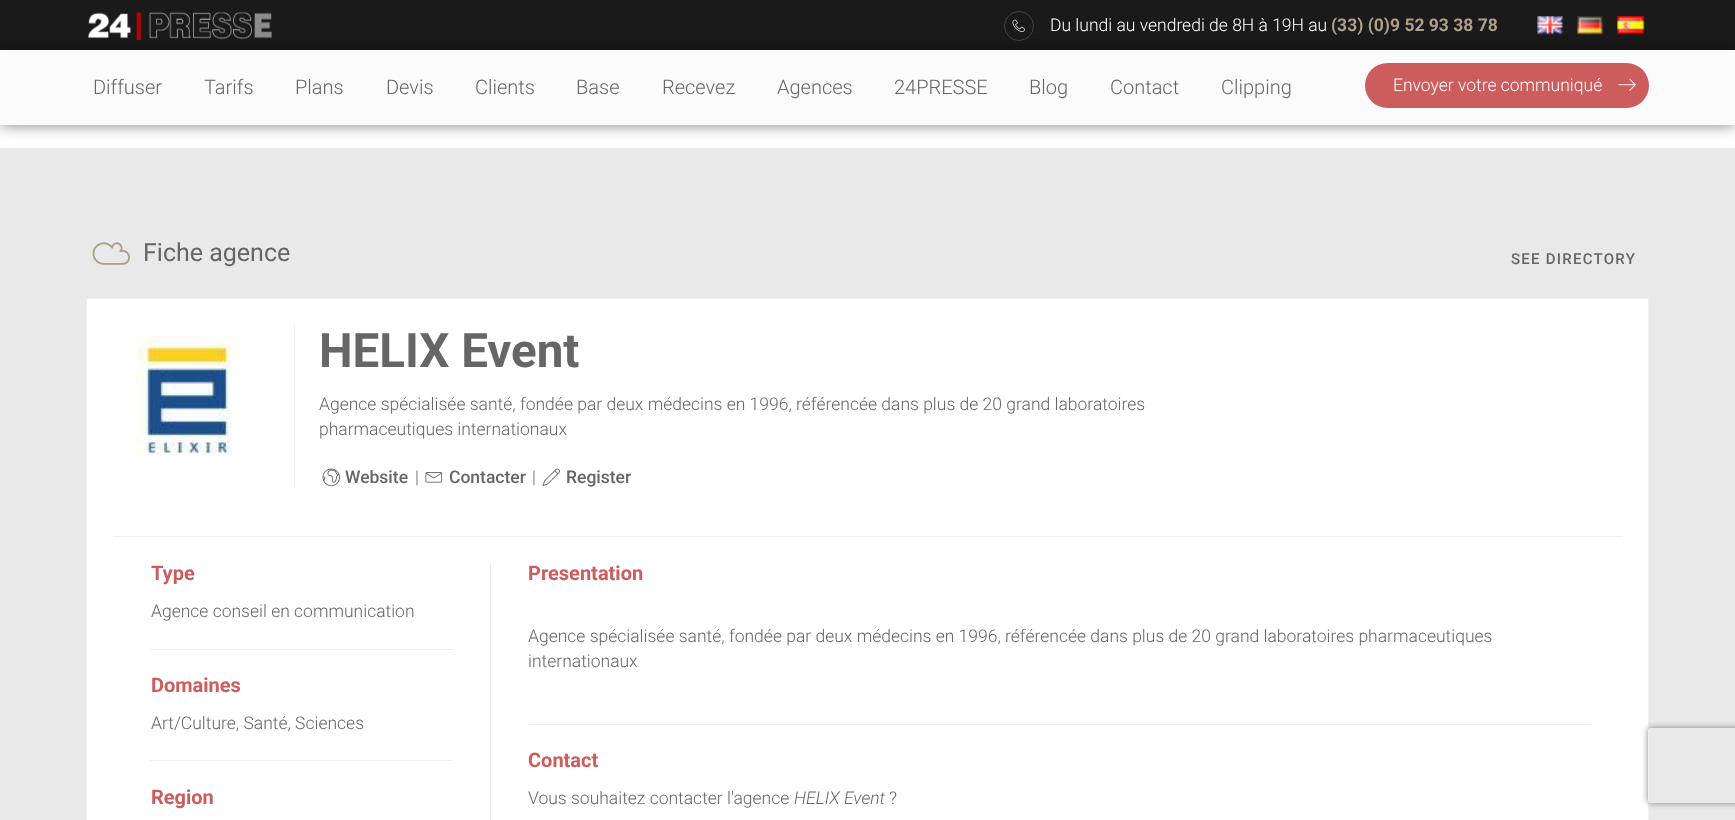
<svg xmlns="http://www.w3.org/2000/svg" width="1735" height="820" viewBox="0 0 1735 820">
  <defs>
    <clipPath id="clip1"><path d="M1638 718H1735V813H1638ZM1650.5 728H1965.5C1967 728 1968 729 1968 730.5V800.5C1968 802 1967 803 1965.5 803H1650.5C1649 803 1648 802 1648 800.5V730.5C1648 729 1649 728 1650.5 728Z" clip-rule="evenodd"/></clipPath>
  </defs>
  <rect width="100%" height="100%" fill="rgb(255,255,255)"/>
  <rect x="0" y="0" width="1735" height="50" fill="rgb(26,26,26)"/>
  <rect x="0" y="148" width="1735" height="672" fill="rgb(233,233,233)"/>
  <rect x="0" y="50" width="1735" height="75" fill="rgba(0,0,0,0.5)" filter="blur(7.5px)"/>
  <image x="88" y="12" width="184" height="28" href="pic1.png"/>
  <circle cx="1019" cy="26" r="14.5" fill="none" stroke="rgb(68,68,68)"/>
  <text x="1050" y="31" font-family="Roboto" font-size="17.5" font-weight="300" fill="rgb(255,255,255)">Du lundi au vendredi de 8H à 19H au</text>
  <text x="1331" y="31" font-family="Roboto" font-size="17.5" font-weight="bold" fill="rgb(173,159,140)">(33) (0)9 52 93 38 78</text>
  <image x="1012" y="19" width="13" height="13" href="pic2.png"/>
  <image x="1537" y="16" width="27" height="19" href="pic3.png"/>
  <image x="1577" y="16" width="27" height="19" href="pic4.png"/>
  <image x="1617" y="16" width="28" height="19" href="pic5.png"/>
  <rect x="0" y="50" width="1735" height="75" fill="rgb(251,251,251)"/>
  <g font-family="Roboto" font-size="20" font-weight="300" fill="rgb(102,102,102)">
    <text x="93" y="94">Diffuser</text>
    <text x="204" y="94">Tarifs</text>
    <text x="295" y="94">Plans</text>
    <text x="386" y="94">Devis</text>
    <text x="475" y="94">Clients</text>
    <text x="576" y="94">Base</text>
    <text x="662" y="94">Recevez</text>
    <text x="777" y="94">Agences</text>
    <text x="894" y="94">24PRESSE</text>
    <text x="1029" y="94">Blog</text>
    <text x="1110" y="94">Contact</text>
    <text x="1221" y="94">Clipping</text>
  </g>
  <rect x="1365" y="63" width="284" height="45" rx="22.5" fill="rgb(205,92,92)"/>
  <text x="1393" y="91" font-family="Roboto" font-size="17.5" font-weight="300" fill="rgb(255,255,255)">Envoyer votre communiqué</text>
  <image x="1618" y="78" width="18" height="13" href="pic6.png"/>
  <image x="92" y="242" width="38" height="23" href="pic7.png"/>
  <text x="143" y="261" font-family="Roboto" font-size="25" fill="rgb(102,102,102)">Fiche agence</text>
  <text x="1511" y="264" font-family="Roboto" font-size="15" font-weight="500" letter-spacing="1.25" fill="rgb(102,102,102)">SEE DIRECTORY</text>
  <rect x="86.5" y="298.5" width="1562" height="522" fill="rgb(255,255,255)" stroke="rgb(239,239,239)"/>
  <rect x="113" y="536" width="1510" height="1" fill="rgb(239,239,239)"/>
  <image x="135" y="336" width="97" height="119" href="pic8.png"/>
  <rect x="294" y="324" width="1" height="162" fill="rgb(239,239,239)"/>
  <text x="319" y="367" font-family="Roboto" font-size="47.5" font-weight="bold" fill="rgb(102,102,102)">HELIX Event</text>
  <g font-family="Roboto" font-size="17.5" font-weight="300" fill="rgb(102,102,102)">
    <text>
      <tspan x="319" y="410">Agence spécialisée santé, fondée par deux médecins en 1996, référencée dans plus de 20 grand laboratoires</tspan>
      <tspan x="319" y="435">pharmaceutiques internationaux</tspan>
    </text>
  </g>
  <image x="322" y="468" width="18" height="19" href="pic9.png"/>
  <text x="345" y="483" font-family="Roboto" font-size="17.5" font-weight="500" fill="rgb(102,102,102)">Website</text>
  <text x="415" y="483" font-family="Roboto" font-size="17.5" font-weight="300" fill="rgb(102,102,102)">|</text>
  <image x="425" y="472" width="18" height="11" href="pic10.png"/>
  <text x="449" y="483" font-family="Roboto" font-size="17.5" font-weight="500" fill="rgb(102,102,102)">Contacter</text>
  <text x="532" y="483" font-family="Roboto" font-size="17.5" font-weight="300" fill="rgb(102,102,102)">|</text>
  <image x="542" y="468" width="18" height="18" href="pic11.png"/>
  <text x="566" y="483" font-family="Roboto" font-size="17.5" font-weight="500" fill="rgb(102,102,102)">Register</text>
  <rect x="490" y="563" width="1" height="257" fill="rgb(239,239,239)"/>
  <text x="151" y="580" font-family="Roboto" font-size="20" font-weight="bold" fill="rgb(205,92,92)">Type</text>
  <rect x="150" y="649" width="303" height="1" fill="rgb(239,239,239)"/>
  <text x="151" y="617" font-family="Roboto" font-size="17.5" font-weight="300" fill="rgb(102,102,102)">Agence conseil en communication</text>
  <text x="151" y="692" font-family="Roboto" font-size="20" font-weight="bold" fill="rgb(205,92,92)">Domaines</text>
  <rect x="150" y="760" width="303" height="1" fill="rgb(239,239,239)"/>
  <text x="151" y="729" font-family="Roboto" font-size="17.5" font-weight="300" fill="rgb(102,102,102)">Art/Culture, Santé, Sciences</text>
  <text x="151" y="804" font-family="Roboto" font-size="20" font-weight="bold" fill="rgb(205,92,92)">Region</text>
  <rect x="529" y="724" width="1062" height="1" fill="rgb(239,239,239)"/>
  <text x="528" y="580" font-family="Roboto" font-size="20" font-weight="bold" fill="rgb(205,92,92)">Presentation</text>
  <g font-family="Roboto" font-size="17.5" font-weight="300" fill="rgb(102,102,102)">
    <text>
      <tspan x="528" y="642">Agence spécialisée santé, fondée par deux médecins en 1996, référencée dans plus de 20 grand laboratoires pharmaceutiques</tspan>
      <tspan x="528" y="667">internationaux</tspan>
    </text>
  </g>
  <text x="528" y="767" font-family="Roboto" font-size="20" font-weight="bold" fill="rgb(205,92,92)">Contact</text>
  <text x="528" y="804" font-family="Roboto" font-size="17.5" font-weight="300" fill="rgb(102,102,102)">Vous souhaitez contacter l'agence</text>
  <text x="794" y="804" font-family="Roboto" font-size="17.5" font-weight="300" font-style="italic" fill="rgb(102,102,102)">HELIX Event</text>
  <text x="889" y="804" font-family="Roboto" font-size="17.5" font-weight="300" fill="rgb(102,102,102)">?</text>
  <g clip-path="url(#clip1)">
    <rect x="1648" y="728" width="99" height="75" rx="2.5" fill="rgb(128,128,128)" filter="blur(3px)"/>
  </g>
</svg>
